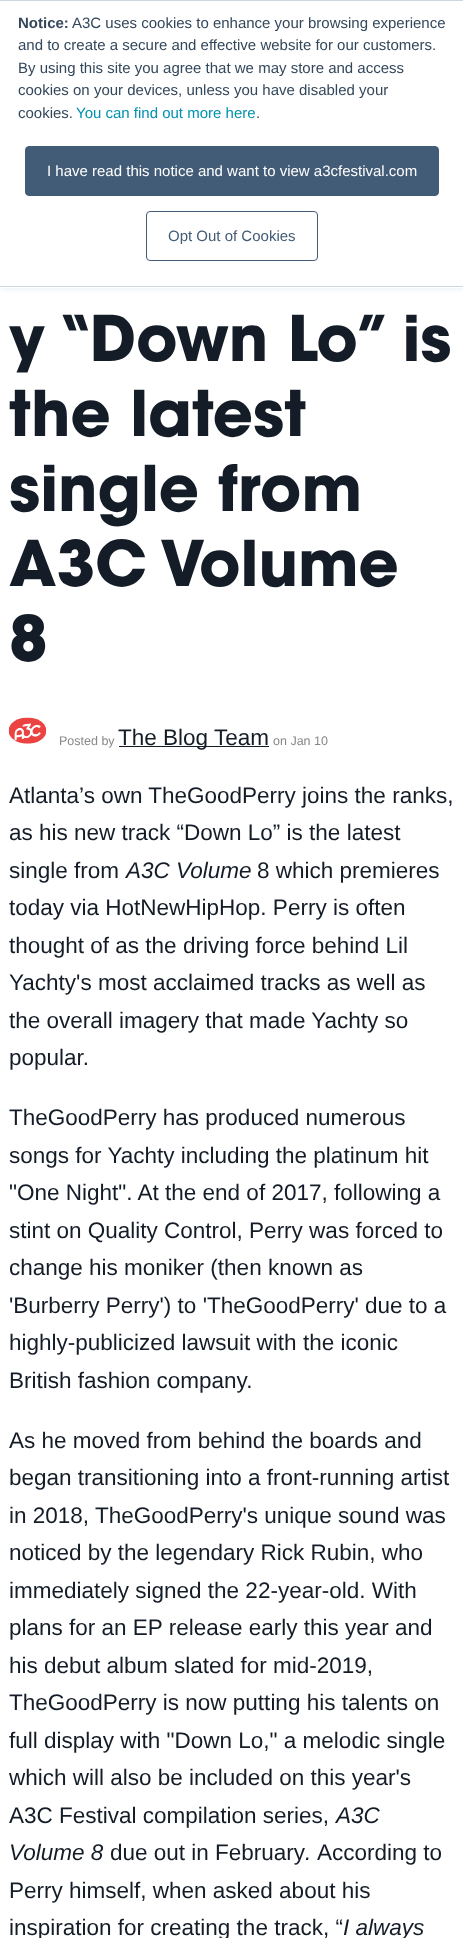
<svg xmlns="http://www.w3.org/2000/svg" width="463" height="1938" viewBox="0 0 463 1938">
  <rect width="100%" height="100%" fill="rgb(255,255,255)"/>
  <rect x="0" y="1" width="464" height="288" fill="rgb(234,240,246)" filter="blur(3px)"/>
  <rect x="0" y="1" width="463" height="287" fill="rgb(255,255,255)"/>
  <rect x="0" y="0" width="463" height="1" fill="rgb(203,214,226)"/>
  <rect x="0" y="286" width="463" height="1" fill="rgb(203,214,226)"/>
  <text x="18" y="28" font-family="Liberation Sans" font-size="15" font-weight="bold" fill="rgb(51,71,91)">Notice:</text>
  <g font-family="Liberation Sans" font-size="15" fill="rgb(51,71,91)">
    <text x="72" y="28">A3C uses cookies to enhance your browsing experience</text>
    <text>
      <tspan x="18" y="50">and to create a secure and effective website for our customers.</tspan>
      <tspan x="18" y="73">By using this site you agree that we may store and access</tspan>
      <tspan x="18" y="95">cookies on your devices, unless you have disabled your</tspan>
      <tspan x="18" y="118">cookies.</tspan>
    </text>
  </g>
  <text x="76" y="118" font-family="Liberation Sans" font-size="15" fill="rgb(0,145,174)">You can find out more here</text>
  <text x="256" y="118" font-family="Liberation Sans" font-size="15" fill="rgb(51,71,91)">.</text>
  <rect x="25.5" y="146.5" width="413" height="49" rx="3.5" fill="rgb(66,91,118)" stroke="rgb(66,91,118)"/>
  <text x="47" y="176" font-family="Liberation Sans" font-size="15" fill="rgb(255,255,255)">I have read this notice and want to view a3cfestival.com</text>
  <rect x="146.5" y="211.5" width="171" height="49" rx="3.5" fill="none" stroke="rgb(66,91,118)"/>
  <text x="168" y="241" font-family="Liberation Sans" font-size="15" fill="rgb(66,91,118)">Opt Out of Cookies</text>
  <g font-family="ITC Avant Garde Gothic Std" font-size="62.5" font-weight="bold" fill="rgb(20,28,39)">
    <text>
      <tspan x="9" y="361">y “Down Lo” is</tspan>
      <tspan x="9" y="436">the latest</tspan>
      <tspan x="9" y="511">single from</tspan>
      <tspan x="9" y="586">A3C Volume</tspan>
      <tspan x="9" y="661">8</tspan>
    </text>
  </g>
  <image x="8" y="717" width="39" height="27" href="pic1.png"/>
  <text x="59" y="745" font-family="Liberation Sans" font-size="12.5" fill="rgb(136,136,136)">Posted by</text>
  <rect x="119" y="746" width="150" height="1" fill="rgb(20,28,39)"/>
  <text x="118" y="745" font-family="Liberation Sans" font-size="22.5" fill="rgb(20,28,39)">The Blog Team</text>
  <text x="273" y="745" font-family="Liberation Sans" font-size="12.5" fill="rgb(136,136,136)">on Jan 10</text>
  <g font-family="Liberation Sans" font-size="22.5" fill="rgb(20,28,39)">
    <text>
      <tspan x="9" y="803">Atlanta’s own TheGoodPerry joins the ranks,</tspan>
      <tspan x="9" y="840">as his new track “Down Lo” is the latest</tspan>
      <tspan x="9" y="878">single from</tspan>
    </text>
  </g>
  <text x="126" y="878" font-family="Liberation Sans" font-size="22.5" font-style="italic" fill="rgb(20,28,39)">A3C Volume</text>
  <g font-family="Liberation Sans" font-size="22.5" fill="rgb(20,28,39)">
    <text x="257" y="878">8 which premieres</text>
    <text>
      <tspan x="9" y="915">today via HotNewHipHop. Perry is often</tspan>
      <tspan x="9" y="953">thought of as the driving force behind Lil</tspan>
      <tspan x="9" y="990">Yachty's most acclaimed tracks as well as</tspan>
      <tspan x="9" y="1028">the overall imagery that made Yachty so</tspan>
      <tspan x="9" y="1065">popular.</tspan>
    </text>
    <text>
      <tspan x="9" y="1125">TheGoodPerry has produced numerous</tspan>
      <tspan x="9" y="1163">songs for Yachty including the platinum hit</tspan>
      <tspan x="9" y="1200">"One Night". At the end of 2017, following a</tspan>
      <tspan x="9" y="1238">stint on Quality Control, Perry was forced to</tspan>
      <tspan x="9" y="1275">change his moniker (then known as</tspan>
      <tspan x="9" y="1313">'Burberry Perry') to 'TheGoodPerry' due to a</tspan>
      <tspan x="9" y="1350">highly-publicized lawsuit with the iconic</tspan>
      <tspan x="9" y="1388">British fashion company.</tspan>
    </text>
    <text>
      <tspan x="9" y="1448">As he moved from behind the boards and</tspan>
      <tspan x="9" y="1485">began transitioning into a front-running artist</tspan>
      <tspan x="9" y="1523">in 2018, TheGoodPerry's unique sound was</tspan>
      <tspan x="9" y="1560">noticed by the legendary Rick Rubin, who</tspan>
      <tspan x="9" y="1598">immediately signed the 22-year-old. With</tspan>
      <tspan x="9" y="1635">plans for an EP release early this year and</tspan>
      <tspan x="9" y="1673">his debut album slated for mid-2019,</tspan>
      <tspan x="9" y="1710">TheGoodPerry is now putting his talents on</tspan>
      <tspan x="9" y="1748">full display with "Down Lo," a melodic single</tspan>
      <tspan x="9" y="1785">which will also be included on this year's</tspan>
      <tspan x="9" y="1823">A3C Festival compilation series,</tspan>
    </text>
  </g>
  <g font-family="Liberation Sans" font-size="22.5" font-style="italic" fill="rgb(20,28,39)">
    <text x="336" y="1823">A3C</text>
    <text x="9" y="1860">Volume 8</text>
  </g>
  <text x="110" y="1860" font-family="Liberation Sans" font-size="22.5" fill="rgb(20,28,39)">due out in February</text>
  <text x="305" y="1860" font-family="Liberation Sans" font-size="22.5" font-style="italic" fill="rgb(20,28,39)">.</text>
  <g font-family="Liberation Sans" font-size="22.5" fill="rgb(20,28,39)">
    <text x="317" y="1860">According to</text>
    <text>
      <tspan x="9" y="1898">Perry himself, when asked about his</tspan>
      <tspan x="9" y="1935">inspiration for creating the track, “</tspan>
    </text>
  </g>
  <text x="343" y="1935" font-family="Liberation Sans" font-size="22.5" font-style="italic" fill="rgb(20,28,39)">I always</text>
</svg>
